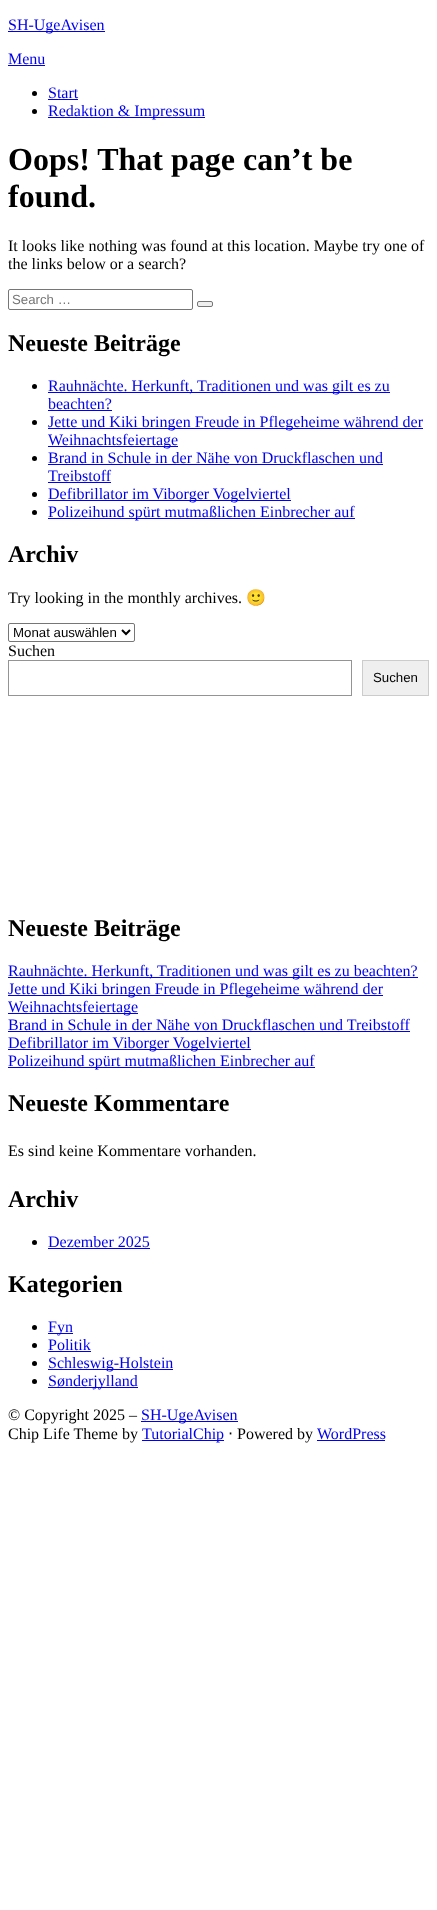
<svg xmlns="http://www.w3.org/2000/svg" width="437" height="1910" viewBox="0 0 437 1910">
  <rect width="100%" height="100%" fill="rgb(255,255,255)"/>
  <rect x="8" y="31" width="97" height="1" fill="rgb(0,0,238)"/>
  <g font-family="Liberation Serif" font-size="16" fill="rgb(0,0,238)">
    <text x="8" y="30">SH-UgeAvisen</text>
    <text x="8" y="64">Menu</text>
  </g>
  <rect x="8" y="65" width="37" height="1" fill="rgb(0,0,238)"/>
  <circle cx="34.5" cy="93.5" r="2.5" fill="rgb(0,0,0)"/>
  <text x="48" y="98" font-family="Liberation Serif" font-size="16" fill="rgb(0,0,238)">Start</text>
  <rect x="48" y="99" width="30" height="1" fill="rgb(0,0,238)"/>
  <circle cx="34.5" cy="111.5" r="2.5" fill="rgb(0,0,0)"/>
  <rect x="48" y="117" width="157" height="1" fill="rgb(0,0,238)"/>
  <text x="48" y="116" font-family="Liberation Serif" font-size="16" fill="rgb(0,0,238)">Redaktion &amp; Impressum</text>
  <g font-family="Liberation Serif" font-size="32" font-weight="bold" fill="rgb(0,0,0)">
    <text>
      <tspan x="8" y="170">Oops! That page can’t be</tspan>
      <tspan x="8" y="207">found.</tspan>
    </text>
  </g>
  <g font-family="Liberation Serif" font-size="16" fill="rgb(0,0,0)">
    <text>
      <tspan x="8" y="251">It looks like nothing was found at this location. Maybe try one of</tspan>
      <tspan x="8" y="269">the links below or a search?</tspan>
    </text>
  </g>
  <rect x="8.5" y="289.5" width="184" height="20" rx="1.5" fill="none" stroke="rgb(118,118,118)"/>
  <text x="12" y="304" font-family="Liberation Sans" font-size="13.25" fill="rgb(117,117,117)">Search …</text>
  <rect x="197.5" y="301.5" width="15" height="5" rx="1.5" fill="rgb(239,239,239)" stroke="rgb(118,118,118)"/>
  <text x="8" y="351" font-family="Liberation Serif" font-size="24" font-weight="bold" fill="rgb(0,0,0)">Neueste Beiträge</text>
  <circle cx="34.5" cy="386.5" r="2.5" fill="rgb(0,0,0)"/>
  <rect x="48" y="392" width="342" height="1" fill="rgb(0,0,238)"/>
  <g font-family="Liberation Serif" font-size="16" fill="rgb(0,0,238)">
    <text>
      <tspan x="48" y="391">Rauhnächte. Herkunft, Traditionen und was gilt es zu</tspan>
      <tspan x="48" y="409">beachten?</tspan>
    </text>
  </g>
  <rect x="48" y="410" width="64" height="1" fill="rgb(0,0,238)"/>
  <circle cx="34.5" cy="422.5" r="2.5" fill="rgb(0,0,0)"/>
  <rect x="48" y="428" width="375" height="1" fill="rgb(0,0,238)"/>
  <text x="48" y="427" font-family="Liberation Serif" font-size="16" fill="rgb(0,0,238)">Jette und Kiki bringen Freude in Pflegeheime während der</text>
  <rect x="48" y="446" width="130" height="1" fill="rgb(0,0,238)"/>
  <text x="48" y="445" font-family="Liberation Serif" font-size="16" fill="rgb(0,0,238)">Weihnachtsfeiertage</text>
  <circle cx="34.5" cy="458.5" r="2.5" fill="rgb(0,0,0)"/>
  <text x="48" y="463" font-family="Liberation Serif" font-size="16" fill="rgb(0,0,238)">Brand in Schule in der Nähe von Druckflaschen und</text>
  <rect x="48" y="464" width="335" height="1" fill="rgb(0,0,238)"/>
  <text x="48" y="481" font-family="Liberation Serif" font-size="16" fill="rgb(0,0,238)">Treibstoff</text>
  <rect x="48" y="482" width="63" height="1" fill="rgb(0,0,238)"/>
  <circle cx="34.5" cy="494.5" r="2.5" fill="rgb(0,0,0)"/>
  <rect x="48" y="500" width="243" height="1" fill="rgb(0,0,238)"/>
  <text x="48" y="499" font-family="Liberation Serif" font-size="16" fill="rgb(0,0,238)">Defibrillator im Viborger Vogelviertel</text>
  <circle cx="34.5" cy="512.5" r="2.5" fill="rgb(0,0,0)"/>
  <rect x="48" y="518" width="307" height="1" fill="rgb(0,0,238)"/>
  <text x="48" y="517" font-family="Liberation Serif" font-size="16" fill="rgb(0,0,238)">Polizeihund spürt mutmaßlichen Einbrecher auf</text>
  <text x="8" y="562" font-family="Liberation Serif" font-size="24" font-weight="bold" fill="rgb(0,0,0)">Archiv</text>
  <text x="8" y="603" font-family="Liberation Serif" font-size="16" fill="rgb(0,0,0)">Try looking in the monthly archives.</text>
  <text x="246" y="603" font-family="Noto Color Emoji" font-size="16" fill="rgb(0,0,0)">🙂</text>
  <rect x="8.5" y="623.5" width="126" height="18" rx="1.5" fill="none" stroke="rgb(118,118,118)"/>
  <path d="M122 630L126 634L130 630" fill="none" stroke="rgb(0,0,0)" stroke-width="2"/>
  <text x="13" y="637" font-family="Liberation Sans" font-size="13.25" fill="rgb(0,0,0)">Monat auswählen</text>
  <text x="8" y="656" font-family="Liberation Serif" font-size="16" fill="rgb(0,0,0)">Suchen</text>
  <rect x="8.5" y="660.5" width="343" height="35" fill="none" stroke="rgb(148,148,148)"/>
  <rect x="362.5" y="660.5" width="66" height="35" fill="rgb(239,239,239)" stroke="rgb(204,204,204)"/>
  <text x="373" y="682" font-family="Liberation Sans" font-size="13.25" fill="rgb(0,0,0)">Suchen</text>
  <text x="8" y="936" font-family="Liberation Serif" font-size="24" font-weight="bold" fill="rgb(0,0,0)">Neueste Beiträge</text>
  <rect x="8" y="977" width="410" height="1" fill="rgb(0,0,238)"/>
  <text x="8" y="976" font-family="Liberation Serif" font-size="16" fill="rgb(0,0,238)">Rauhnächte. Herkunft, Traditionen und was gilt es zu beachten?</text>
  <rect x="8" y="995" width="375" height="1" fill="rgb(0,0,238)"/>
  <text x="8" y="994" font-family="Liberation Serif" font-size="16" fill="rgb(0,0,238)">Jette und Kiki bringen Freude in Pflegeheime während der</text>
  <rect x="8" y="1013" width="130" height="1" fill="rgb(0,0,238)"/>
  <g font-family="Liberation Serif" font-size="16" fill="rgb(0,0,238)">
    <text>
      <tspan x="8" y="1012">Weihnachtsfeiertage</tspan>
      <tspan x="8" y="1030">Brand in Schule in der Nähe von Druckflaschen und Treibstoff</tspan>
    </text>
  </g>
  <rect x="8" y="1031" width="402" height="1" fill="rgb(0,0,238)"/>
  <rect x="8" y="1049" width="243" height="1" fill="rgb(0,0,238)"/>
  <text x="8" y="1048" font-family="Liberation Serif" font-size="16" fill="rgb(0,0,238)">Defibrillator im Viborger Vogelviertel</text>
  <rect x="8" y="1067" width="307" height="1" fill="rgb(0,0,238)"/>
  <text x="8" y="1066" font-family="Liberation Serif" font-size="16" fill="rgb(0,0,238)">Polizeihund spürt mutmaßlichen Einbrecher auf</text>
  <text x="8" y="1111" font-family="Liberation Serif" font-size="24" font-weight="bold" fill="rgb(0,0,0)">Neueste Kommentare</text>
  <text x="8" y="1156" font-family="Liberation Serif" font-size="16" fill="rgb(0,0,0)">Es sind keine Kommentare vorhanden.</text>
  <text x="8" y="1207" font-family="Liberation Serif" font-size="24" font-weight="bold" fill="rgb(0,0,0)">Archiv</text>
  <circle cx="34.5" cy="1242.5" r="2.5" fill="rgb(0,0,0)"/>
  <text x="48" y="1247" font-family="Liberation Serif" font-size="16" fill="rgb(0,0,238)">Dezember 2025</text>
  <rect x="48" y="1248" width="102" height="1" fill="rgb(0,0,238)"/>
  <text x="8" y="1292" font-family="Liberation Serif" font-size="24" font-weight="bold" fill="rgb(0,0,0)">Kategorien</text>
  <circle cx="34.5" cy="1327.5" r="2.5" fill="rgb(0,0,0)"/>
  <rect x="48" y="1333" width="25" height="1" fill="rgb(0,0,238)"/>
  <text x="48" y="1332" font-family="Liberation Serif" font-size="16" fill="rgb(0,0,238)">Fyn</text>
  <circle cx="34.5" cy="1345.5" r="2.5" fill="rgb(0,0,0)"/>
  <text x="48" y="1350" font-family="Liberation Serif" font-size="16" fill="rgb(0,0,238)">Politik</text>
  <rect x="48" y="1351" width="43" height="1" fill="rgb(0,0,238)"/>
  <circle cx="34.5" cy="1363.5" r="2.5" fill="rgb(0,0,0)"/>
  <rect x="48" y="1369" width="125" height="1" fill="rgb(0,0,238)"/>
  <text x="48" y="1368" font-family="Liberation Serif" font-size="16" fill="rgb(0,0,238)">Schleswig-Holstein</text>
  <circle cx="34.5" cy="1381.5" r="2.5" fill="rgb(0,0,0)"/>
  <rect x="48" y="1387" width="90" height="1" fill="rgb(0,0,238)"/>
  <text x="48" y="1386" font-family="Liberation Serif" font-size="16" fill="rgb(0,0,238)">Sønderjylland</text>
  <text x="8" y="1420" font-family="Liberation Serif" font-size="16" fill="rgb(0,0,0)">© Copyright 2025 –</text>
  <rect x="141" y="1421" width="97" height="1" fill="rgb(0,0,238)"/>
  <text x="141" y="1420" font-family="Liberation Serif" font-size="16" fill="rgb(0,0,238)">SH-UgeAvisen</text>
  <text x="8" y="1439" font-family="Liberation Serif" font-size="16" fill="rgb(0,0,0)">Chip Life Theme by</text>
  <rect x="142" y="1440" width="82" height="1" fill="rgb(0,0,238)"/>
  <text x="142" y="1439" font-family="Liberation Serif" font-size="16" fill="rgb(0,0,238)">TutorialChip</text>
  <text x="228" y="1439" font-family="DejaVu Sans" font-size="16" fill="rgb(0,0,0)">⋅</text>
  <text x="237" y="1439" font-family="Liberation Serif" font-size="16" fill="rgb(0,0,0)">Powered by</text>
  <text x="317" y="1439" font-family="Liberation Serif" font-size="16" fill="rgb(0,0,238)">WordPress</text>
  <rect x="317" y="1440" width="68" height="1" fill="rgb(0,0,238)"/>
</svg>
